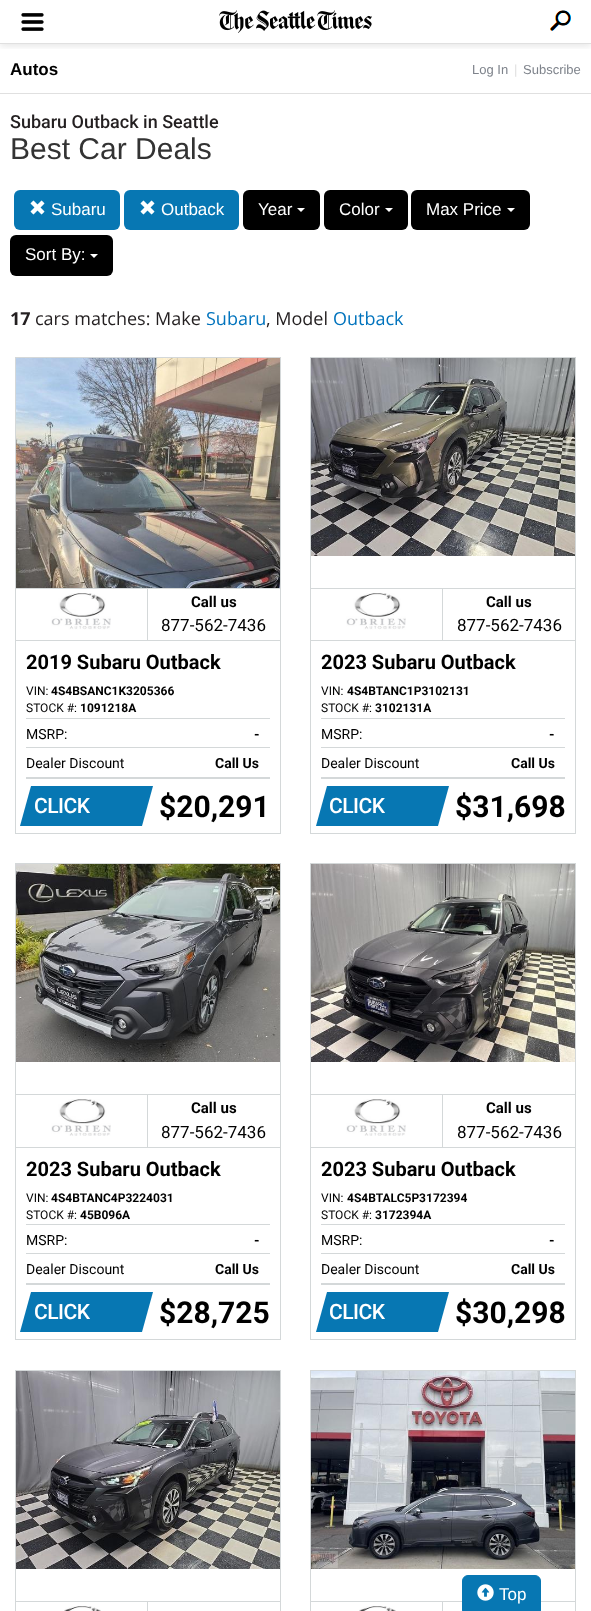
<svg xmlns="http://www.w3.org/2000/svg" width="591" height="1611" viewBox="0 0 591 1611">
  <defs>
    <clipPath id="clip1"><rect x="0" y="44" width="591" height="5"/></clipPath>
  </defs>
  <rect width="100%" height="100%" fill="rgb(255,255,255)"/>
  <g clip-path="url(#clip1)">
    <rect x="0" y="2" width="591" height="44" fill="rgba(0,0,0,0.1)" filter="blur(3.5px)"/>
  </g>
  <rect x="0" y="43" width="591" height="1" fill="rgb(224,224,224)"/>
  <image x="21" y="13" width="23" height="18" href="pic1.png"/>
  <image x="219" y="10" width="153" height="23" href="pic2.png"/>
  <image x="550" y="10" width="21" height="21" href="pic3.png"/>
  <rect x="0" y="93" width="591" height="1" fill="rgb(224,224,224)"/>
  <text x="10" y="75" font-family="Liberation Sans" font-size="17" font-weight="bold" fill="rgb(0,0,0)">Autos</text>
  <text x="472" y="74" font-family="Liberation Sans" font-size="13" fill="rgb(126,131,139)">Log In</text>
  <text x="514" y="74" font-family="Liberation Sans" font-size="13" fill="rgb(224,224,224)">|</text>
  <text x="523" y="74" font-family="Liberation Sans" font-size="13" fill="rgb(126,131,139)">Subscribe</text>
  <text x="10" y="128" font-family="Roboto" font-size="18" font-weight="500" fill="rgb(35,31,32)">Subaru Outback in Seattle</text>
  <text x="10" y="159" font-family="Liberation Sans" font-size="30" fill="rgb(51,51,51)">Best Car Deals</text>
  <rect x="14" y="190" width="106" height="40" rx="6" fill="rgb(7,119,179)"/>
  <image x="30" y="200" width="15" height="15" href="pic4.png"/>
  <text x="51" y="215" font-family="Liberation Sans" font-size="17" fill="rgb(255,255,255)">Subaru</text>
  <rect x="124" y="190" width="115" height="40" rx="6" fill="rgb(7,119,179)"/>
  <image x="140" y="200" width="15" height="15" href="pic4.png"/>
  <text x="161" y="215" font-family="Liberation Sans" font-size="17" fill="rgb(255,255,255)">Outback</text>
  <rect x="243" y="190" width="77" height="40" rx="6" fill="rgb(0,0,0)"/>
  <text x="258" y="215" font-family="Liberation Sans" font-size="17" fill="rgb(255,255,255)">Year</text>
  <path d="M297 208H305L301 212Z" fill="rgb(255,255,255)"/>
  <rect x="324" y="190" width="84" height="40" rx="6" fill="rgb(0,0,0)"/>
  <text x="339" y="215" font-family="Liberation Sans" font-size="17" fill="rgb(255,255,255)">Color</text>
  <path d="M385 208H393L389 212Z" fill="rgb(255,255,255)"/>
  <rect x="411" y="190" width="119" height="40" rx="6" fill="rgb(0,0,0)"/>
  <text x="426" y="215" font-family="Liberation Sans" font-size="17" fill="rgb(255,255,255)">Max Price</text>
  <path d="M507 208H515L511 212Z" fill="rgb(255,255,255)"/>
  <rect x="10" y="235" width="103" height="41" rx="6" fill="rgb(0,0,0)"/>
  <text x="25" y="260" font-family="Liberation Sans" font-size="17" fill="rgb(255,255,255)">Sort By:</text>
  <path d="M90 254H98L94 258Z" fill="rgb(255,255,255)"/>
  <text x="10" y="325" font-family="Open Sans" font-size="18" font-weight="bold" fill="rgb(35,31,32)">17</text>
  <text x="35" y="325" font-family="Open Sans" font-size="18" fill="rgb(35,31,32)">cars matches: Make</text>
  <text x="206" y="325" font-family="Open Sans" font-size="18" fill="rgb(0,115,189)">Subaru</text>
  <text x="266" y="325" font-family="Open Sans" font-size="18" fill="rgb(35,31,32)">, Model</text>
  <text x="333" y="325" font-family="Open Sans" font-size="18" fill="rgb(0,115,189)">Outback</text>
  <rect x="15.5" y="357.5" width="265" height="476" fill="none" stroke="rgb(212,216,217)"/>
  <image x="16" y="358" width="264" height="230" href="pic5.png"/>
  <rect x="16" y="588" width="264" height="1" fill="rgb(212,216,217)"/>
  <rect x="147" y="588" width="1" height="53" fill="rgb(212,216,217)"/>
  <rect x="16" y="640" width="264" height="1" fill="rgb(212,216,217)"/>
  <image x="51" y="593" width="60" height="37" href="pic6.png"/>
  <text x="191" y="607" font-family="Roboto" font-size="15" font-weight="bold" fill="rgb(0,0,0)">Call us</text>
  <text x="161" y="631" font-family="Roboto" font-size="17" fill="rgb(0,0,0)">877-562-7436</text>
  <text x="26" y="669" font-family="Roboto" font-size="20" font-weight="bold" fill="rgb(0,0,0)">2019 Subaru Outback</text>
  <text x="26" y="695" font-family="Roboto" font-size="12" fill="rgb(0,0,0)">VIN:</text>
  <text x="51" y="695" font-family="Roboto" font-size="12" font-weight="bold" fill="rgb(0,0,0)">4S4BSANC1K3205366</text>
  <text x="26" y="712" font-family="Roboto" font-size="12" fill="rgb(0,0,0)">STOCK #:</text>
  <text x="80" y="712" font-family="Roboto" font-size="12" font-weight="bold" fill="rgb(0,0,0)">1091218A</text>
  <rect x="26" y="718" width="244" height="1" fill="rgb(212,216,217)"/>
  <rect x="26" y="747" width="244" height="1" fill="rgb(212,216,217)"/>
  <text x="26" y="739" font-family="Roboto" font-size="14" fill="rgb(0,0,0)">MSRP:</text>
  <text x="254" y="739" font-family="Roboto" font-size="14" font-weight="bold" fill="rgb(0,0,0)">-</text>
  <rect x="26" y="777" width="244" height="2" fill="rgb(212,216,217)"/>
  <text x="26" y="768" font-family="Roboto" font-size="14" fill="rgb(0,0,0)">Dealer Discount</text>
  <text x="215" y="768" font-family="Roboto" font-size="14" font-weight="bold" fill="rgb(0,0,0)">Call Us</text>
  <path d="M31 786H153L142 826H20Z" fill="rgb(7,119,179)"/>
  <text x="34" y="813" font-family="Roboto" font-size="21" font-weight="500" letter-spacing="-0.5" fill="rgb(255,255,255)">CLICK</text>
  <text x="159" y="817" font-family="Roboto" font-size="30" font-weight="bold" fill="rgb(0,0,0)">$20,291</text>
  <rect x="310.5" y="357.5" width="265" height="476" fill="none" stroke="rgb(212,216,217)"/>
  <image x="311" y="358" width="264" height="198" href="pic7.png"/>
  <rect x="311" y="588" width="264" height="1" fill="rgb(212,216,217)"/>
  <rect x="442" y="588" width="1" height="53" fill="rgb(212,216,217)"/>
  <rect x="311" y="640" width="264" height="1" fill="rgb(212,216,217)"/>
  <image x="346" y="593" width="60" height="37" href="pic6.png"/>
  <text x="486" y="607" font-family="Roboto" font-size="15" font-weight="bold" fill="rgb(0,0,0)">Call us</text>
  <text x="457" y="631" font-family="Roboto" font-size="17" fill="rgb(0,0,0)">877-562-7436</text>
  <text x="321" y="669" font-family="Roboto" font-size="20" font-weight="bold" fill="rgb(0,0,0)">2023 Subaru Outback</text>
  <text x="321" y="695" font-family="Roboto" font-size="12" fill="rgb(0,0,0)">VIN:</text>
  <text x="347" y="695" font-family="Roboto" font-size="12" font-weight="bold" fill="rgb(0,0,0)">4S4BTANC1P3102131</text>
  <text x="321" y="712" font-family="Roboto" font-size="12" fill="rgb(0,0,0)">STOCK #:</text>
  <text x="375" y="712" font-family="Roboto" font-size="12" font-weight="bold" fill="rgb(0,0,0)">3102131A</text>
  <rect x="321" y="718" width="244" height="1" fill="rgb(212,216,217)"/>
  <rect x="321" y="747" width="244" height="1" fill="rgb(212,216,217)"/>
  <text x="321" y="739" font-family="Roboto" font-size="14" fill="rgb(0,0,0)">MSRP:</text>
  <text x="549" y="739" font-family="Roboto" font-size="14" font-weight="bold" fill="rgb(0,0,0)">-</text>
  <rect x="321" y="777" width="244" height="2" fill="rgb(212,216,217)"/>
  <text x="321" y="768" font-family="Roboto" font-size="14" fill="rgb(0,0,0)">Dealer Discount</text>
  <text x="511" y="768" font-family="Roboto" font-size="14" font-weight="bold" fill="rgb(0,0,0)">Call Us</text>
  <path d="M327 786H449L438 826H316Z" fill="rgb(7,119,179)"/>
  <text x="329" y="813" font-family="Roboto" font-size="21" font-weight="500" letter-spacing="-0.5" fill="rgb(255,255,255)">CLICK</text>
  <text x="455" y="817" font-family="Roboto" font-size="30" font-weight="bold" fill="rgb(0,0,0)">$31,698</text>
  <rect x="15.5" y="863.5" width="265" height="476" fill="none" stroke="rgb(212,216,217)"/>
  <image x="16" y="864" width="264" height="198" href="pic8.png"/>
  <rect x="16" y="1094" width="264" height="1" fill="rgb(212,216,217)"/>
  <rect x="147" y="1094" width="1" height="54" fill="rgb(212,216,217)"/>
  <rect x="16" y="1147" width="264" height="1" fill="rgb(212,216,217)"/>
  <image x="51" y="1099" width="60" height="37" href="pic9.png"/>
  <text x="191" y="1113" font-family="Roboto" font-size="15" font-weight="bold" fill="rgb(0,0,0)">Call us</text>
  <text x="161" y="1138" font-family="Roboto" font-size="17" fill="rgb(0,0,0)">877-562-7436</text>
  <text x="26" y="1176" font-family="Roboto" font-size="20" font-weight="bold" fill="rgb(0,0,0)">2023 Subaru Outback</text>
  <text x="26" y="1202" font-family="Roboto" font-size="12" fill="rgb(0,0,0)">VIN:</text>
  <text x="51" y="1202" font-family="Roboto" font-size="12" font-weight="bold" fill="rgb(0,0,0)">4S4BTANC4P3224031</text>
  <text x="26" y="1219" font-family="Roboto" font-size="12" fill="rgb(0,0,0)">STOCK #:</text>
  <text x="80" y="1219" font-family="Roboto" font-size="12" font-weight="bold" fill="rgb(0,0,0)">45B096A</text>
  <rect x="26" y="1224" width="244" height="1" fill="rgb(212,216,217)"/>
  <rect x="26" y="1253" width="244" height="1" fill="rgb(212,216,217)"/>
  <text x="26" y="1245" font-family="Roboto" font-size="14" fill="rgb(0,0,0)">MSRP:</text>
  <text x="254" y="1245" font-family="Roboto" font-size="14" font-weight="bold" fill="rgb(0,0,0)">-</text>
  <rect x="26" y="1283" width="244" height="2" fill="rgb(212,216,217)"/>
  <text x="26" y="1274" font-family="Roboto" font-size="14" fill="rgb(0,0,0)">Dealer Discount</text>
  <text x="215" y="1274" font-family="Roboto" font-size="14" font-weight="bold" fill="rgb(0,0,0)">Call Us</text>
  <path d="M31 1292H153L142 1332H20Z" fill="rgb(7,119,179)"/>
  <text x="34" y="1319" font-family="Roboto" font-size="21" font-weight="500" letter-spacing="-0.5" fill="rgb(255,255,255)">CLICK</text>
  <text x="159" y="1323" font-family="Roboto" font-size="30" font-weight="bold" fill="rgb(0,0,0)">$28,725</text>
  <rect x="310.5" y="863.5" width="265" height="476" fill="none" stroke="rgb(212,216,217)"/>
  <image x="311" y="864" width="264" height="198" href="pic10.png"/>
  <rect x="311" y="1094" width="264" height="1" fill="rgb(212,216,217)"/>
  <rect x="442" y="1094" width="1" height="54" fill="rgb(212,216,217)"/>
  <rect x="311" y="1147" width="264" height="1" fill="rgb(212,216,217)"/>
  <image x="346" y="1099" width="60" height="37" href="pic9.png"/>
  <text x="486" y="1113" font-family="Roboto" font-size="15" font-weight="bold" fill="rgb(0,0,0)">Call us</text>
  <text x="457" y="1138" font-family="Roboto" font-size="17" fill="rgb(0,0,0)">877-562-7436</text>
  <text x="321" y="1176" font-family="Roboto" font-size="20" font-weight="bold" fill="rgb(0,0,0)">2023 Subaru Outback</text>
  <text x="321" y="1202" font-family="Roboto" font-size="12" fill="rgb(0,0,0)">VIN:</text>
  <text x="347" y="1202" font-family="Roboto" font-size="12" font-weight="bold" fill="rgb(0,0,0)">4S4BTALC5P3172394</text>
  <text x="321" y="1219" font-family="Roboto" font-size="12" fill="rgb(0,0,0)">STOCK #:</text>
  <text x="375" y="1219" font-family="Roboto" font-size="12" font-weight="bold" fill="rgb(0,0,0)">3172394A</text>
  <rect x="321" y="1224" width="244" height="1" fill="rgb(212,216,217)"/>
  <rect x="321" y="1253" width="244" height="1" fill="rgb(212,216,217)"/>
  <text x="321" y="1245" font-family="Roboto" font-size="14" fill="rgb(0,0,0)">MSRP:</text>
  <text x="549" y="1245" font-family="Roboto" font-size="14" font-weight="bold" fill="rgb(0,0,0)">-</text>
  <rect x="321" y="1283" width="244" height="2" fill="rgb(212,216,217)"/>
  <text x="321" y="1274" font-family="Roboto" font-size="14" fill="rgb(0,0,0)">Dealer Discount</text>
  <text x="511" y="1274" font-family="Roboto" font-size="14" font-weight="bold" fill="rgb(0,0,0)">Call Us</text>
  <path d="M327 1292H449L438 1332H316Z" fill="rgb(7,119,179)"/>
  <text x="329" y="1319" font-family="Roboto" font-size="21" font-weight="500" letter-spacing="-0.5" fill="rgb(255,255,255)">CLICK</text>
  <text x="455" y="1323" font-family="Roboto" font-size="30" font-weight="bold" fill="rgb(0,0,0)">$30,298</text>
  <rect x="15.5" y="1370.5" width="265" height="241" fill="none" stroke="rgb(212,216,217)"/>
  <image x="16" y="1371" width="264" height="198" href="pic11.png"/>
  <rect x="16" y="1601" width="264" height="1" fill="rgb(212,216,217)"/>
  <rect x="147" y="1601" width="1" height="10" fill="rgb(212,216,217)"/>
  <image x="64" y="1606" width="37" height="5" href="pic12.png"/>
  <rect x="310.5" y="1370.5" width="265" height="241" fill="none" stroke="rgb(212,216,217)"/>
  <image x="311" y="1371" width="264" height="198" href="pic13.png"/>
  <rect x="311" y="1601" width="264" height="1" fill="rgb(212,216,217)"/>
  <rect x="442" y="1601" width="1" height="10" fill="rgb(212,216,217)"/>
  <image x="359" y="1606" width="37" height="5" href="pic12.png"/>
  <rect x="462.5" y="1575.5" width="78" height="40" rx="5.5" fill="rgb(7,119,179)" stroke="rgb(7,119,179)"/>
  <image x="477" y="1584" width="17" height="17" href="pic14.png"/>
  <text x="499" y="1600" font-family="Liberation Sans" font-size="17" fill="rgb(255,255,255)">Top</text>
</svg>
